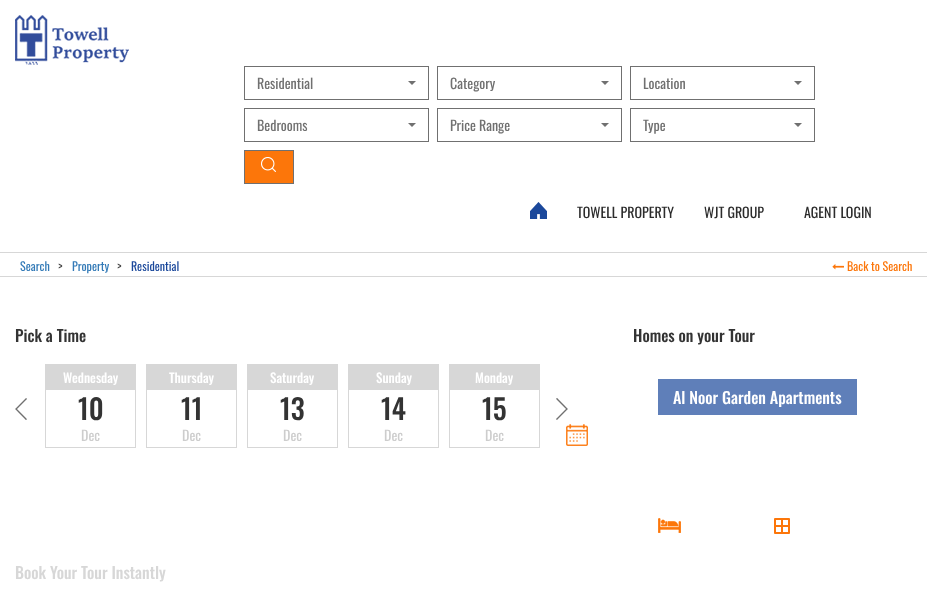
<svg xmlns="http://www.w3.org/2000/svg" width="927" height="614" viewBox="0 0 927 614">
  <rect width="100%" height="100%" fill="rgb(255,255,255)"/>
  <rect x="0" y="252" width="927" height="1" fill="rgb(215,215,215)"/>
  <image x="15" y="15" width="114" height="50" href="pic1.png"/>
  <rect x="244.5" y="66.5" width="184" height="33" fill="none" stroke="rgb(112,112,112)"/>
  <text x="257" y="89" font-family="Oswald" font-size="14" fill="rgb(112,112,112)">Residential</text>
  <path d="M408 81H416L412 85Z" fill="rgb(112,112,112)"/>
  <rect x="437.5" y="66.5" width="184" height="33" fill="none" stroke="rgb(112,112,112)"/>
  <text x="450" y="89" font-family="Oswald" font-size="14" fill="rgb(112,112,112)">Category</text>
  <path d="M601 81H609L605 85Z" fill="rgb(112,112,112)"/>
  <rect x="630.5" y="66.5" width="184" height="33" fill="none" stroke="rgb(112,112,112)"/>
  <text x="643" y="89" font-family="Oswald" font-size="14" fill="rgb(112,112,112)">Location</text>
  <path d="M794 81H802L798 85Z" fill="rgb(112,112,112)"/>
  <rect x="244.5" y="108.5" width="184" height="33" fill="none" stroke="rgb(112,112,112)"/>
  <text x="257" y="131" font-family="Oswald" font-size="14" fill="rgb(112,112,112)">Bedrooms</text>
  <path d="M408 123H416L412 127Z" fill="rgb(112,112,112)"/>
  <rect x="437.5" y="108.5" width="184" height="33" fill="none" stroke="rgb(112,112,112)"/>
  <text x="450" y="131" font-family="Oswald" font-size="14" fill="rgb(112,112,112)">Price Range</text>
  <path d="M601 123H609L605 127Z" fill="rgb(112,112,112)"/>
  <rect x="630.5" y="108.5" width="184" height="33" fill="none" stroke="rgb(112,112,112)"/>
  <text x="643" y="131" font-family="Oswald" font-size="14" fill="rgb(112,112,112)">Type</text>
  <path d="M794 123H802L798 127Z" fill="rgb(112,112,112)"/>
  <rect x="245" y="151" width="48" height="32" fill="rgb(252,118,10)"/>
  <image x="261" y="157" width="15" height="15" href="pic2.png"/>
  <rect x="244.5" y="150.5" width="49" height="33" fill="none" stroke="rgb(112,112,112)"/>
  <image x="530" y="202" width="17" height="17" href="pic3.png"/>
  <g font-family="Oswald" font-size="14" fill="rgb(44,44,44)">
    <text x="577" y="218">TOWELL PROPERTY</text>
    <text x="704" y="218">WJT GROUP</text>
    <text x="804" y="218">AGENT LOGIN</text>
  </g>
  <rect x="0" y="276" width="927" height="1" fill="rgb(215,215,215)"/>
  <text x="20" y="271" font-family="Oswald" font-size="12" fill="rgb(51,122,183)">Search</text>
  <text x="58" y="271" font-family="Oswald" font-size="12" fill="rgb(70,70,70)">&gt;</text>
  <text x="72" y="271" font-family="Oswald" font-size="12" fill="rgb(51,122,183)">Property</text>
  <text x="117" y="271" font-family="Oswald" font-size="12" fill="rgb(70,70,70)">&gt;</text>
  <text x="131" y="271" font-family="Oswald" font-size="12" fill="rgb(27,72,155)">Residential</text>
  <image x="832" y="264" width="12" height="6" href="pic4.png"/>
  <text x="847" y="271" font-family="Oswald" font-size="12" fill="rgb(252,118,10)">Back to Search</text>
  <text x="15" y="342" font-family="Oswald" font-size="16" font-weight="500" fill="rgb(51,51,51)">Pick a Time</text>
  <rect x="45.5" y="364.5" width="90" height="83" fill="none" stroke="rgb(215,215,215)"/>
  <rect x="46" y="365" width="89" height="25" fill="rgb(215,215,215)"/>
  <text x="63" y="383" font-family="Oswald" font-size="13" font-weight="500" fill="rgb(255,255,255)">Wednesday</text>
  <text x="78" y="420" font-family="Oswald" font-size="28" font-weight="500" fill="rgb(51,51,51)">10</text>
  <text x="81" y="441" font-family="Oswald" font-size="14" fill="rgb(205,205,205)">Dec</text>
  <rect x="146.5" y="364.5" width="90" height="83" fill="none" stroke="rgb(215,215,215)"/>
  <rect x="147" y="365" width="89" height="25" fill="rgb(215,215,215)"/>
  <text x="169" y="383" font-family="Oswald" font-size="13" font-weight="500" fill="rgb(255,255,255)">Thursday</text>
  <text x="181" y="420" font-family="Oswald" font-size="28" font-weight="500" fill="rgb(51,51,51)">11</text>
  <text x="182" y="441" font-family="Oswald" font-size="14" fill="rgb(205,205,205)">Dec</text>
  <rect x="247.5" y="364.5" width="90" height="83" fill="none" stroke="rgb(215,215,215)"/>
  <rect x="248" y="365" width="89" height="25" fill="rgb(215,215,215)"/>
  <text x="270" y="383" font-family="Oswald" font-size="13" font-weight="500" fill="rgb(255,255,255)">Saturday</text>
  <text x="280" y="420" font-family="Oswald" font-size="28" font-weight="500" fill="rgb(51,51,51)">13</text>
  <text x="283" y="441" font-family="Oswald" font-size="14" fill="rgb(205,205,205)">Dec</text>
  <rect x="348.5" y="364.5" width="90" height="83" fill="none" stroke="rgb(215,215,215)"/>
  <rect x="349" y="365" width="89" height="25" fill="rgb(215,215,215)"/>
  <text x="376" y="383" font-family="Oswald" font-size="13" font-weight="500" fill="rgb(255,255,255)">Sunday</text>
  <text x="381" y="420" font-family="Oswald" font-size="28" font-weight="500" fill="rgb(51,51,51)">14</text>
  <text x="384" y="441" font-family="Oswald" font-size="14" fill="rgb(205,205,205)">Dec</text>
  <rect x="449.5" y="364.5" width="90" height="83" fill="none" stroke="rgb(215,215,215)"/>
  <rect x="450" y="365" width="89" height="25" fill="rgb(215,215,215)"/>
  <text x="475" y="383" font-family="Oswald" font-size="13" font-weight="500" fill="rgb(255,255,255)">Monday</text>
  <text x="482" y="420" font-family="Oswald" font-size="28" font-weight="500" fill="rgb(51,51,51)">15</text>
  <text x="485" y="441" font-family="Oswald" font-size="14" fill="rgb(205,205,205)">Dec</text>
  <image x="15" y="398" width="12" height="22" href="pic5.png"/>
  <image x="556" y="398" width="12" height="22" href="pic6.png"/>
  <image x="566" y="424" width="22" height="22" href="pic7.png"/>
  <text x="15" y="579" font-family="Oswald" font-size="16" font-weight="500" fill="rgb(215,215,215)">Book Your Tour Instantly</text>
  <text x="633" y="342" font-family="Oswald" font-size="16" font-weight="500" fill="rgb(51,51,51)">Homes on your Tour</text>
  <rect x="658" y="379" width="199" height="36" fill="rgb(95,127,185)"/>
  <text x="673" y="404" font-family="Oswald" font-size="16" font-weight="500" fill="rgb(255,255,255)">Al Noor Garden Apartments</text>
  <image x="658" y="518" width="23" height="15" href="pic8.png"/>
  <image x="774" y="518" width="16" height="16" href="pic9.png"/>
</svg>
